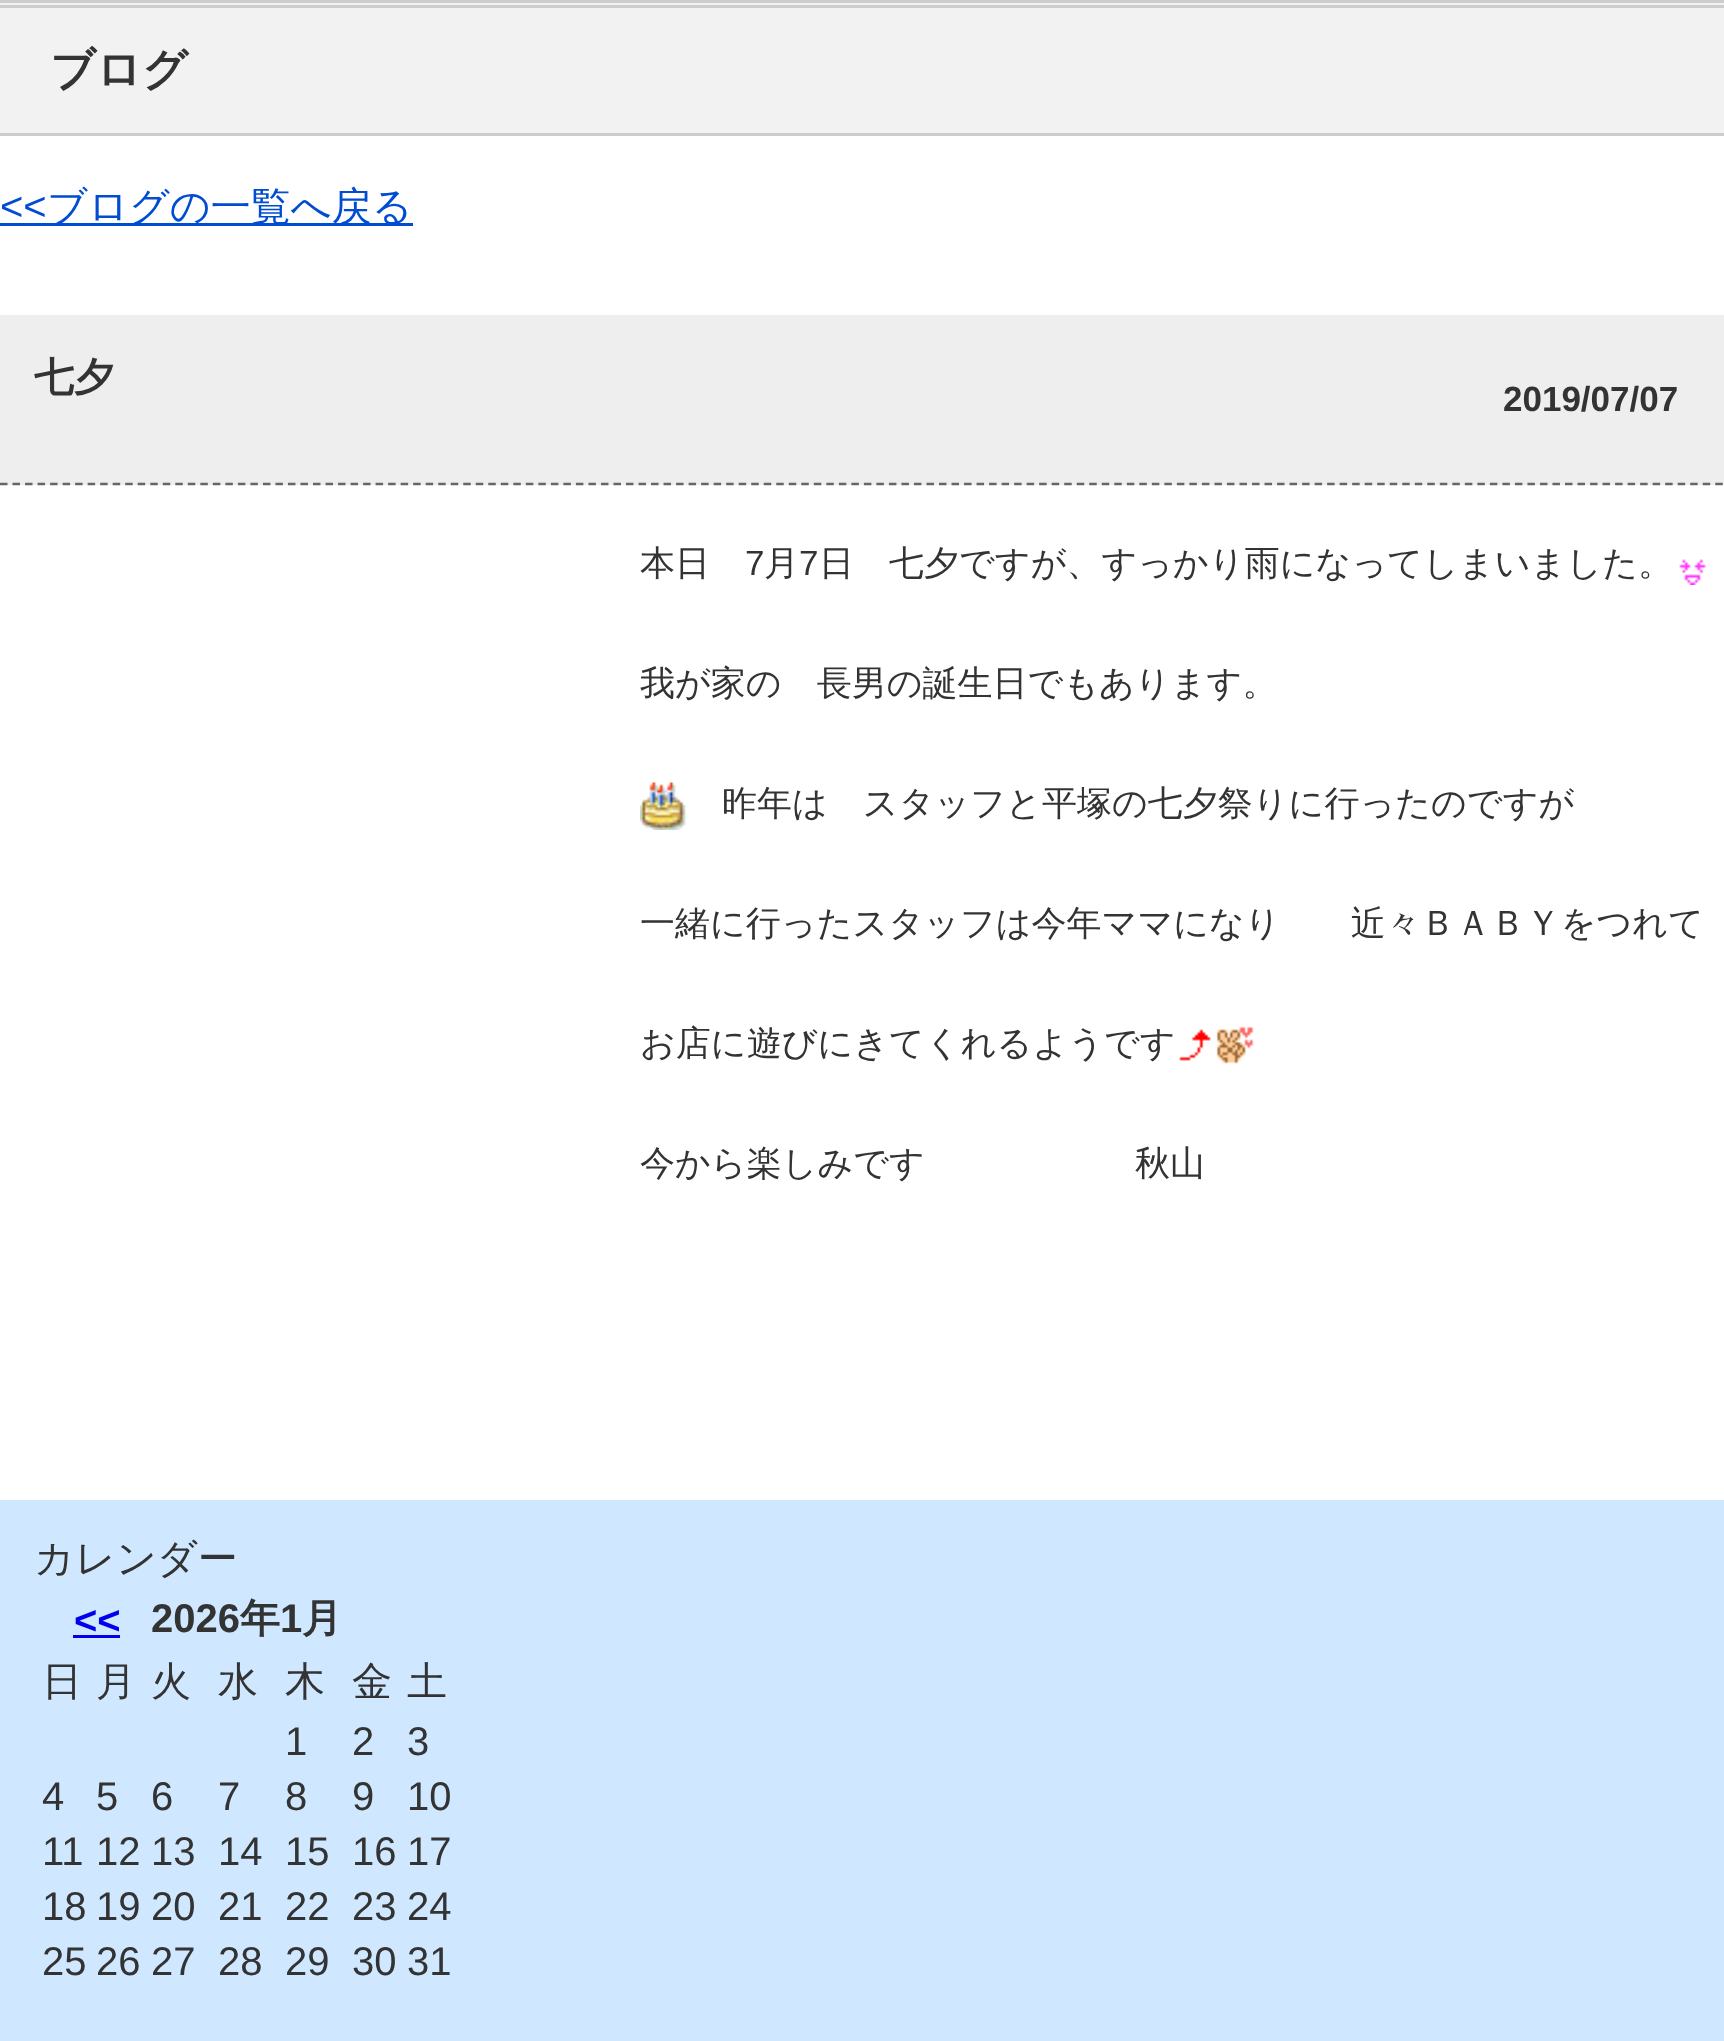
<svg xmlns="http://www.w3.org/2000/svg" width="1724" height="2041" viewBox="0 0 1724 2041">
  <rect width="100%" height="100%" fill="rgb(255,255,255)"/>
  <rect x="0" y="3" width="1724" height="130" fill="rgb(242,242,242)"/>
  <rect x="0" y="0" width="1724" height="3" fill="rgb(204,204,204)"/>
  <rect x="0" y="5" width="1724" height="3" fill="rgb(204,204,204)"/>
  <rect x="0" y="133" width="1724" height="3" fill="rgb(204,204,204)"/>
  <text x="50" y="85" font-family="WenQuanYi Zen Hei" font-size="45" font-weight="bold" fill="rgb(51,51,51)">ブログ</text>
  <text x="0" y="220" font-family="Liberation Sans" font-size="40" fill="rgb(0,76,211)">&lt;&lt;</text>
  <rect x="0" y="223" width="413" height="3" fill="rgb(0,76,211)"/>
  <text x="47" y="220" font-family="WenQuanYi Zen Hei" font-size="40" font-weight="500" fill="rgb(0,76,211)">ブログの一覧へ戻る</text>
  <rect x="0" y="315" width="1724" height="170" fill="rgb(238,238,238)"/>
  <path d="M0 484H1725" fill="none" stroke="rgb(102,102,102)" stroke-width="2.5" stroke-dasharray="7.5 5.02"/>
  <text x="34" y="391" font-family="WenQuanYi Zen Hei" font-size="40" font-weight="bold" fill="rgb(51,51,51)">七夕</text>
  <text x="1503" y="411" font-family="Liberation Sans" font-size="35" font-weight="bold" fill="rgb(51,51,51)">2019/07/07</text>
  <text x="640" y="575" font-family="WenQuanYi Zen Hei" font-size="35" font-weight="500" fill="rgb(51,51,51)">本日</text>
  <text x="745" y="575" font-family="Liberation Sans" font-size="35" fill="rgb(51,51,51)">7</text>
  <text x="764" y="575" font-family="WenQuanYi Zen Hei" font-size="35" font-weight="500" fill="rgb(51,51,51)">月</text>
  <text x="799" y="575" font-family="Liberation Sans" font-size="35" fill="rgb(51,51,51)">7</text>
  <text x="819" y="575" font-family="WenQuanYi Zen Hei" font-size="35" font-weight="500" fill="rgb(51,51,51)">日　七夕ですが、すっかり雨になってしまいました。</text>
  <image x="1679" y="559" width="27" height="26" href="pic1.png"/>
  <text x="640" y="695" font-family="WenQuanYi Zen Hei" font-size="35" font-weight="500" fill="rgb(51,51,51)">我が家の　長男の誕生日でもあります。</text>
  <image x="640" y="782" width="46" height="48" href="pic2.png"/>
  <g font-family="WenQuanYi Zen Hei" font-size="35" font-weight="500" fill="rgb(51,51,51)">
    <text x="722" y="815">昨年は　スタッフと平塚の七夕祭りに行ったのですが</text>
    <text x="640" y="935">一緒に行ったスタッフは今年ママになり　　近々ＢＡＢＹをつれて</text>
    <text x="640" y="1055">お店に遊びにきてくれるようです</text>
  </g>
  <image x="1179" y="1029" width="32" height="32" href="pic3.png"/>
  <image x="1216" y="1026" width="38" height="38" href="pic4.png"/>
  <text x="640" y="1175" font-family="WenQuanYi Zen Hei" font-size="35" font-weight="500" fill="rgb(51,51,51)">今から楽しみです　　　　　　秋山</text>
  <rect x="0" y="1500" width="1724" height="541" fill="rgb(208,232,255)"/>
  <text x="34" y="1572" font-family="WenQuanYi Zen Hei" font-size="40" font-weight="500" fill="rgb(51,51,51)">カレンダー</text>
  <text x="74" y="1634" font-family="Liberation Sans" font-size="40" font-weight="bold" fill="rgb(0,0,238)">&lt;&lt;</text>
  <rect x="73" y="1635" width="47" height="3" fill="rgb(0,0,238)"/>
  <text x="151" y="1632" font-family="Liberation Sans" font-size="40" font-weight="bold" fill="rgb(51,51,51)">2026</text>
  <text x="240" y="1632" font-family="WenQuanYi Zen Hei" font-size="40" font-weight="bold" fill="rgb(51,51,51)">年</text>
  <text x="280" y="1632" font-family="Liberation Sans" font-size="40" font-weight="bold" fill="rgb(51,51,51)">1</text>
  <text x="302" y="1632" font-family="WenQuanYi Zen Hei" font-size="40" font-weight="bold" fill="rgb(51,51,51)">月</text>
  <g font-family="WenQuanYi Zen Hei" font-size="40" font-weight="500" fill="rgb(51,51,51)">
    <text x="42" y="1695">日</text>
    <text x="96" y="1695">月</text>
    <text x="151" y="1695">火</text>
    <text x="218" y="1695">水</text>
    <text x="285" y="1695">木</text>
    <text x="352" y="1695">金</text>
    <text x="407" y="1695">土</text>
  </g>
  <g font-family="Liberation Sans" font-size="40" fill="rgb(51,51,51)">
    <text x="285" y="1755">1</text>
    <text x="352" y="1755">2</text>
    <text x="407" y="1755">3</text>
    <text x="42" y="1810">4</text>
    <text x="96" y="1810">5</text>
    <text x="151" y="1810">6</text>
    <text x="218" y="1810">7</text>
    <text x="285" y="1810">8</text>
    <text x="352" y="1810">9</text>
    <text x="407" y="1810">10</text>
    <text x="42" y="1865">11</text>
    <text x="96" y="1865">12</text>
    <text x="151" y="1865">13</text>
    <text x="218" y="1865">14</text>
    <text x="285" y="1865">15</text>
    <text x="352" y="1865">16</text>
    <text x="407" y="1865">17</text>
    <text x="42" y="1920">18</text>
    <text x="96" y="1920">19</text>
    <text x="151" y="1920">20</text>
    <text x="218" y="1920">21</text>
    <text x="285" y="1920">22</text>
    <text x="352" y="1920">23</text>
    <text x="407" y="1920">24</text>
    <text x="42" y="1975">25</text>
    <text x="96" y="1975">26</text>
    <text x="151" y="1975">27</text>
    <text x="218" y="1975">28</text>
    <text x="285" y="1975">29</text>
    <text x="352" y="1975">30</text>
    <text x="407" y="1975">31</text>
  </g>
</svg>
